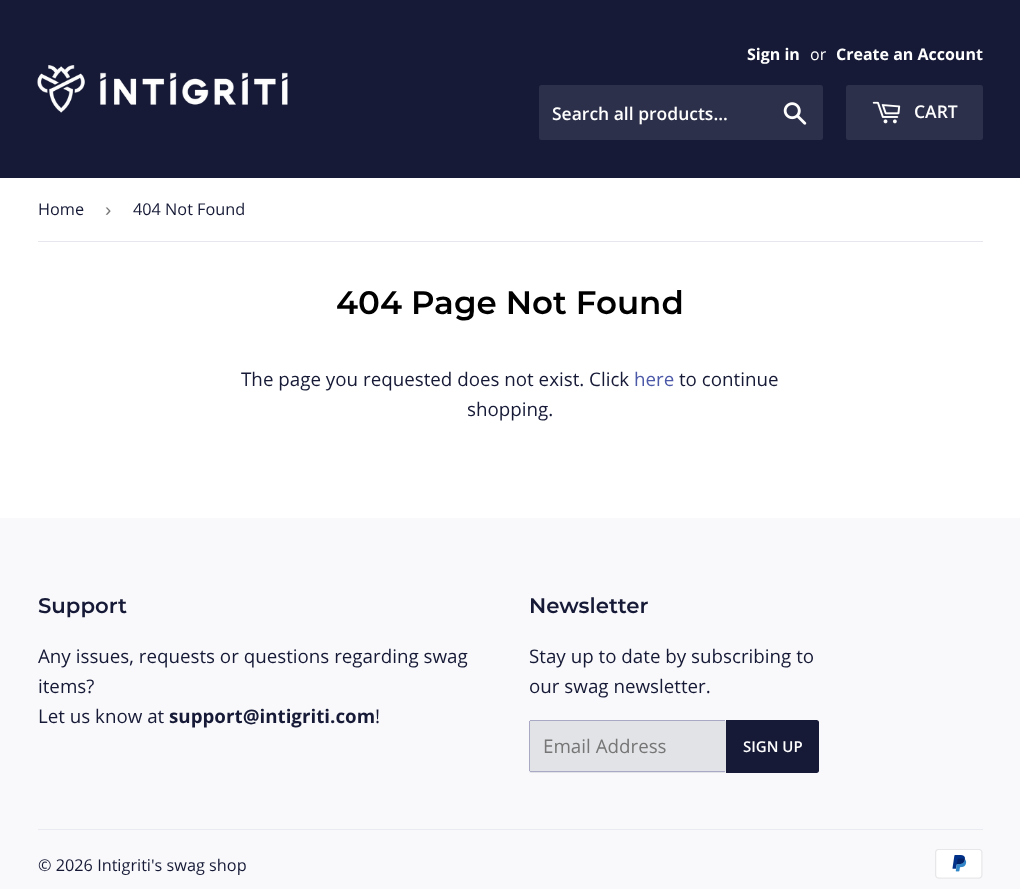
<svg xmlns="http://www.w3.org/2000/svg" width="1020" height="889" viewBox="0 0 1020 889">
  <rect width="100%" height="100%" fill="rgb(255,255,255)"/>
  <rect x="0" y="0" width="1020" height="178" fill="rgb(22,26,54)"/>
  <image x="37" y="65" width="251" height="48" href="pic1.png"/>
  <text x="747" y="60" font-family="Open Sans" font-size="16" font-weight="bold" fill="rgb(255,255,255)">Sign in</text>
  <text x="810" y="60" font-family="Open Sans" font-size="16" fill="rgb(255,255,255)">or</text>
  <text x="836" y="60" font-family="Open Sans" font-size="16" font-weight="bold" fill="rgb(255,255,255)">Create an Account</text>
  <rect x="539" y="85" width="284" height="55" rx="2.5" fill="rgb(45,48,74)"/>
  <text x="552" y="120" font-family="Open Sans" font-size="17.5" font-weight="600" fill="rgb(255,255,255)">Search all products...</text>
  <image x="783" y="102" width="24" height="23" href="pic2.png"/>
  <rect x="846" y="85" width="137" height="55" rx="2.5" fill="rgb(45,48,74)"/>
  <image x="872" y="101" width="29" height="23" href="pic3.png"/>
  <text x="914" y="118" font-family="Open Sans" font-size="17.5" font-weight="600" fill="rgb(255,255,255)">CART</text>
  <rect x="38" y="241" width="945" height="1" fill="rgb(230,230,238)"/>
  <text x="38" y="215" font-family="Open Sans" font-size="16.25" fill="rgb(22,26,54)">Home</text>
  <text x="105" y="216" font-family="Liberation Sans" font-size="18.75" fill="rgb(118,118,118)">›</text>
  <text x="133" y="215" font-family="Open Sans" font-size="16.25" fill="rgb(22,26,54)">404 Not Found</text>
  <text x="336" y="314" font-family="Montserrat" font-size="32.5" font-weight="600" fill="rgb(0,0,0)">404 Page Not Found</text>
  <text x="241" y="386" font-family="Open Sans" font-size="18.75" fill="rgb(22,26,54)">The page you requested does not exist. Click</text>
  <text x="634" y="386" font-family="Open Sans" font-size="18.75" fill="rgb(76,89,168)">here</text>
  <g font-family="Open Sans" font-size="18.75" fill="rgb(22,26,54)">
    <text x="679" y="386">to continue</text>
    <text x="467" y="416">shopping.</text>
  </g>
  <rect x="0" y="518" width="1020" height="371" fill="rgb(249,249,251)"/>
  <text x="38" y="613" font-family="Montserrat" font-size="21.25" font-weight="600" fill="rgb(22,26,54)">Support</text>
  <g font-family="Open Sans" font-size="18.75" fill="rgb(22,26,54)">
    <text>
      <tspan x="38" y="663">Any issues, requests or questions regarding swag</tspan>
      <tspan x="38" y="693">items?</tspan>
      <tspan x="38" y="723">Let us know at</tspan>
    </text>
  </g>
  <text x="169" y="723" font-family="Open Sans" font-size="18.75" font-weight="bold" fill="rgb(22,26,54)">support@intigriti.com</text>
  <text x="375" y="723" font-family="Open Sans" font-size="18.75" fill="rgb(22,26,54)">!</text>
  <text x="529" y="613" font-family="Montserrat" font-size="21.25" font-weight="600" fill="rgb(22,26,54)">Newsletter</text>
  <g font-family="Open Sans" font-size="18.75" fill="rgb(22,26,54)">
    <text>
      <tspan x="529" y="663">Stay up to date by subscribing to</tspan>
      <tspan x="529" y="693">our swag newsletter.</tspan>
    </text>
  </g>
  <rect x="529" y="720" width="197" height="53" rx="2.5" fill="rgb(226,227,231)"/>
  <rect x="530" y="720" width="195" height="1" fill="rgb(169,169,197)"/>
  <rect x="530" y="771" width="195" height="1" fill="rgb(169,169,197)"/>
  <rect x="529" y="721" width="1" height="50" fill="rgb(169,169,197)"/>
  <text x="543" y="753" font-family="Open Sans" font-size="18.75" fill="rgb(118,118,118)">Email Address</text>
  <path d="M726 720H816.5C818 720 819 721 819 722.5V770.5C819 772 818 773 816.5 773H726Z" fill="rgb(22,26,54)"/>
  <text x="743" y="752" font-family="Open Sans" font-size="15" font-weight="600" fill="rgb(255,255,255)">SIGN UP</text>
  <rect x="38" y="829" width="945" height="1" fill="rgb(234,234,241)"/>
  <text x="38" y="871" font-family="Open Sans" font-size="16.25" fill="rgb(22,26,54)">© 2026 Intigriti's swag shop</text>
  <image x="935" y="849" width="48" height="30" href="pic4.png"/>
</svg>
